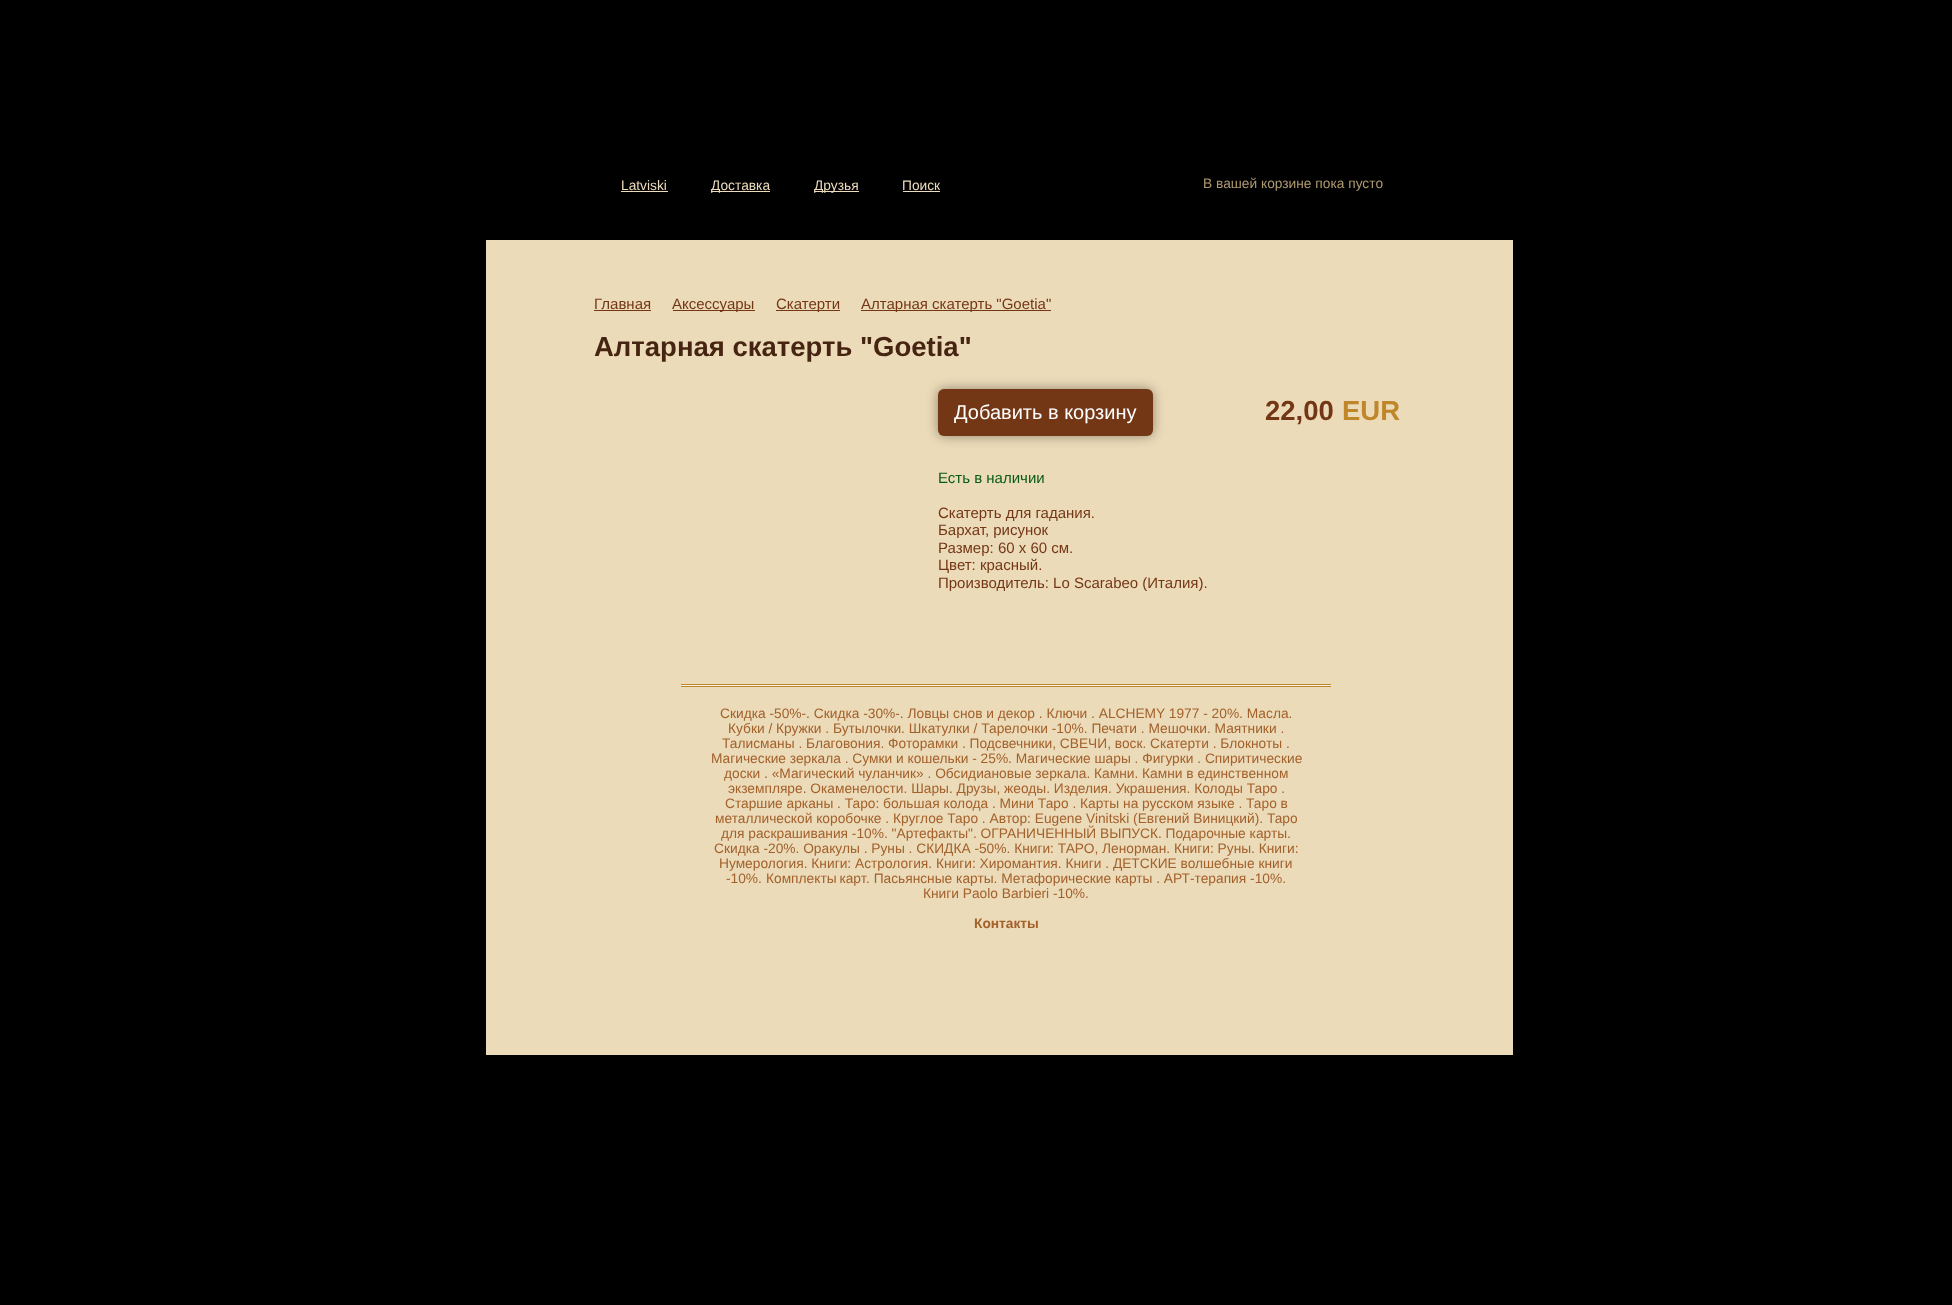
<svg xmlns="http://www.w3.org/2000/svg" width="1952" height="1305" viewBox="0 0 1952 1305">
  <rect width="100%" height="100%" fill="rgb(0,0,0)"/>
  <text x="621" y="190" font-family="Liberation Sans" font-size="13.75" fill="rgb(236,220,188)">Latviski</text>
  <rect x="621" y="191" width="47" height="1" fill="rgb(236,220,188)"/>
  <rect x="711" y="191" width="59" height="1" fill="rgb(236,220,188)"/>
  <text x="711" y="190" font-family="Liberation Sans" font-size="13.75" fill="rgb(236,220,188)">Доставка</text>
  <rect x="814" y="191" width="45" height="1" fill="rgb(236,220,188)"/>
  <g font-family="Liberation Sans" font-size="13.75" fill="rgb(236,220,188)">
    <text x="814" y="190">Друзья</text>
    <text x="902" y="190">Поиск</text>
  </g>
  <rect x="903" y="191" width="37" height="1" fill="rgb(236,220,188)"/>
  <text x="1203" y="188" font-family="Liberation Sans" font-size="13.75" fill="rgb(174,153,111)">В вашей корзине пока пусто</text>
  <rect x="486" y="240" width="1027" height="815" fill="rgb(236,219,185)"/>
  <text x="594" y="309" font-family="Liberation Sans" font-size="15" fill="rgb(116,55,22)">Главная</text>
  <rect x="594" y="310" width="57" height="1" fill="rgb(116,55,22)"/>
  <rect x="673" y="310" width="82" height="1" fill="rgb(116,55,22)"/>
  <text x="672" y="309" font-family="Liberation Sans" font-size="15" fill="rgb(116,55,22)">Аксессуары</text>
  <rect x="776" y="310" width="64" height="1" fill="rgb(116,55,22)"/>
  <text x="776" y="309" font-family="Liberation Sans" font-size="15" fill="rgb(116,55,22)">Скатерти</text>
  <rect x="861" y="310" width="190" height="1" fill="rgb(116,55,22)"/>
  <text x="861" y="309" font-family="Liberation Sans" font-size="15" fill="rgb(116,55,22)">Алтарная скатерть "Goetia"</text>
  <text x="594" y="356" font-family="Liberation Sans" font-size="27.5" font-weight="bold" fill="rgb(70,36,18)">Алтарная скатерть "Goetia"</text>
  <rect x="938" y="389" width="215" height="47" rx="6" fill="rgba(0,0,0,0.4)" filter="blur(6px)"/>
  <rect x="938" y="389" width="215" height="47" rx="6" fill="rgb(116,55,22)"/>
  <text x="954" y="419" font-family="Liberation Sans" font-size="20" fill="rgb(255,255,255)">Добавить в корзину</text>
  <text x="1265" y="420" font-family="Liberation Sans" font-size="27.5" font-weight="bold" fill="rgb(116,55,22)">22,00</text>
  <text x="1342" y="420" font-family="Liberation Sans" font-size="27.5" font-weight="bold" fill="rgb(191,135,41)">EUR</text>
  <text x="938" y="483" font-family="Liberation Sans" font-size="15" fill="rgb(8,91,18)">Есть в наличии</text>
  <g font-family="Liberation Sans" font-size="15" fill="rgb(116,55,22)">
    <text>
      <tspan x="938" y="518">Скатерть для гадания.</tspan>
      <tspan x="938" y="535">Бархат, рисунок</tspan>
      <tspan x="938" y="553">Размер: 60 х 60 cм.</tspan>
      <tspan x="938" y="570">Цвет: красный.</tspan>
      <tspan x="938" y="588">Производитель: Lo Scarabeo (Италия).</tspan>
    </text>
  </g>
  <rect x="681" y="684" width="650" height="3" fill="rgb(191,135,41)"/>
  <rect x="681" y="685" width="650" height="1" fill="rgb(248,241,231)"/>
  <g font-family="Liberation Sans" font-size="13.75" fill="rgb(163,97,44)">
    <text x="720" y="718">Скидка -50%-. Скидка -30%-. Ловцы снов и декор . Ключи . ALCHEMY 1977 - 20%. Масла.</text>
    <text x="728" y="733">Кубки / Кружки . Бутылочки. Шкатулки / Тарелочки -10%. Печати . Мешочки. Маятники .</text>
    <text x="722" y="748">Талисманы . Благовония. Фоторамки . Подсвечники, СВЕЧИ, воск. Скатерти . Блокноты .</text>
    <text x="711" y="763">Магические зеркала . Сумки и кошельки - 25%. Магические шары . Фигурки . Спиритические</text>
    <text x="724" y="778">доски . «Магический чуланчик» . Обсидиановые зеркала. Камни. Камни в единственном</text>
    <text x="728" y="793">экземпляре. Окаменелости. Шары. Друзы, жеоды. Изделия. Украшения. Колоды Таро .</text>
    <text x="725" y="808">Старшие арканы . Таро: большая колода . Мини Таро . Карты на русском языке . Таро в</text>
    <text x="715" y="823">металлической коробочке . Круглое Таро . Автор: Eugene Vinitski (Евгений Виницкий). Таро</text>
    <text x="721" y="838">для раскрашивания -10%. "Артефакты". ОГРАНИЧЕННЫЙ ВЫПУСК. Подарочные карты.</text>
    <text x="714" y="853">Скидка -20%. Оракулы . Руны . СКИДКА -50%. Книги: ТАРО, Ленорман. Книги: Руны. Книги:</text>
    <text x="719" y="868">Нумерология. Книги: Астрология. Книги: Хиромантия. Книги . ДЕТСКИЕ волшебные книги</text>
    <text x="726" y="883">-10%.</text>
    <text x="766" y="883" word-spacing="-1">Комплекты карт</text>
    <text x="866" y="883">. Пасьянсные карты. Метафорические карты . АРТ-терапия -10%.</text>
    <text x="923" y="898">Книги Paolo Barbieri -10%.</text>
  </g>
  <text x="974" y="928" font-family="Liberation Sans" font-size="13.75" font-weight="bold" fill="rgb(163,97,44)">Контакты</text>
</svg>
